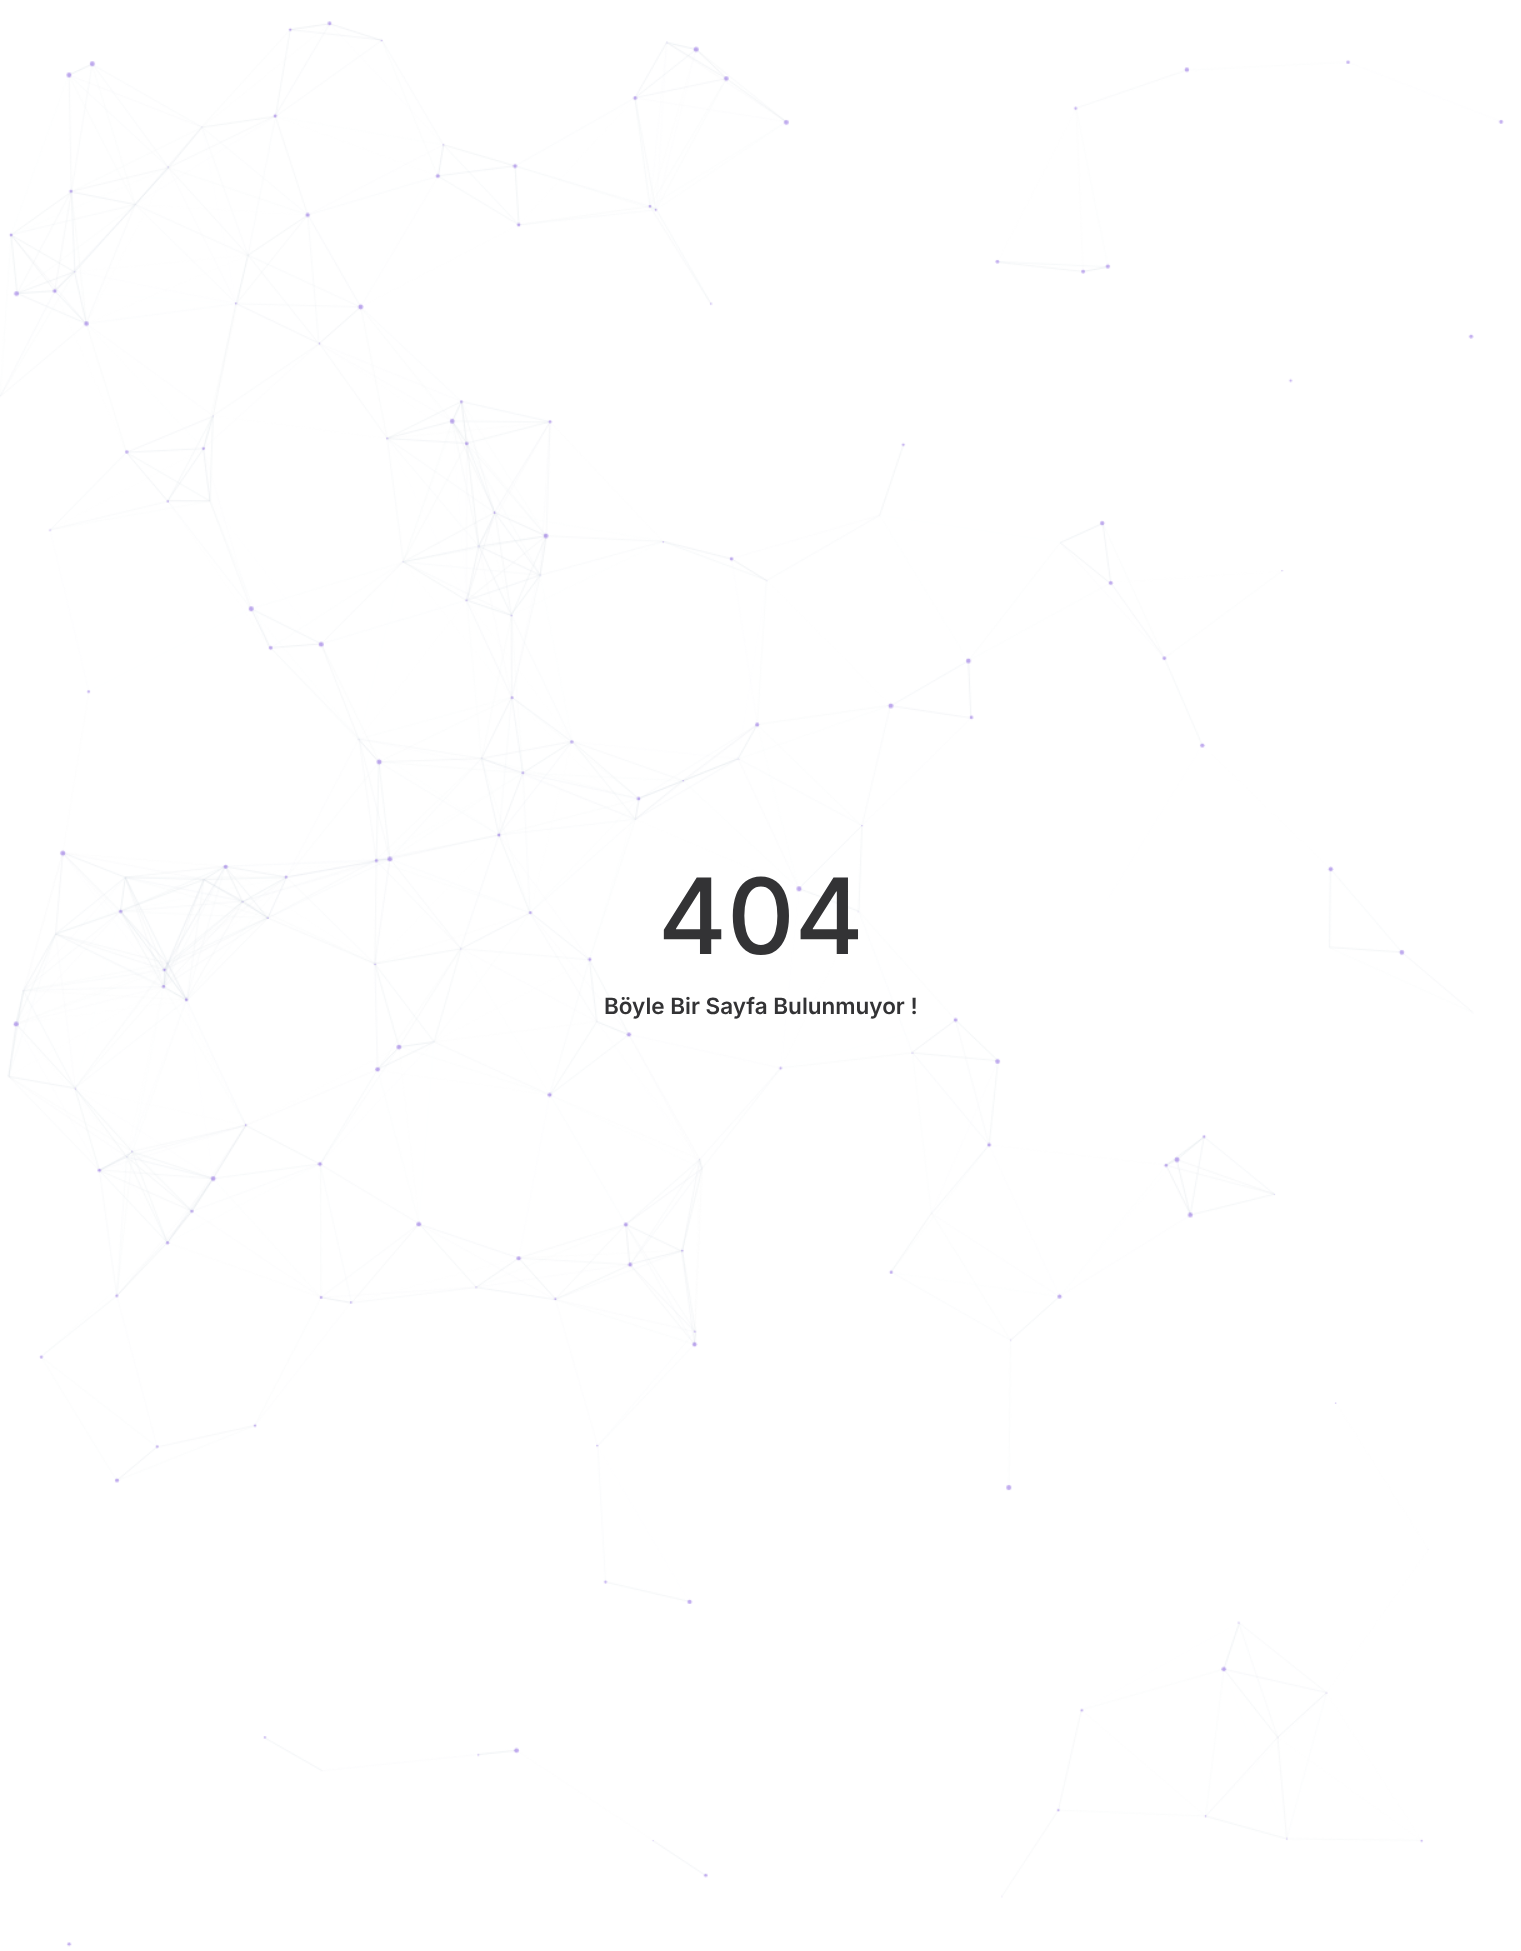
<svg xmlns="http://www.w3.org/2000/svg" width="1521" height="1951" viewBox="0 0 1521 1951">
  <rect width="100%" height="100%" fill="rgb(255,255,255)"/>
  <image x="0" y="21" width="1504" height="1926" href="pic1.png"/>
  <text x="658" y="954" font-family="Inter" font-size="105" font-weight="500" fill="rgb(51,51,53)">404</text>
  <text x="604" y="1014" font-family="Inter" font-size="22.5" font-weight="600" fill="rgb(51,51,53)">Böyle Bir Sayfa Bulunmuyor !</text>
</svg>
